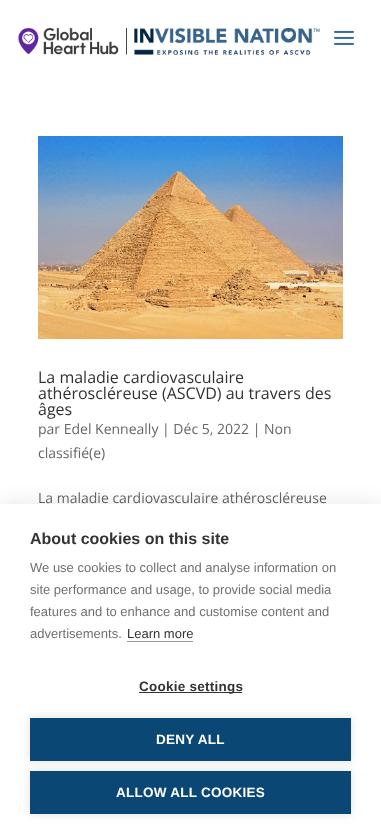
<svg xmlns="http://www.w3.org/2000/svg" width="381" height="839" viewBox="0 0 381 839">
  <rect width="100%" height="100%" fill="rgb(255,255,255)"/>
  <image x="18" y="28" width="302" height="27" href="pic1.png"/>
  <image x="334" y="30" width="20" height="15" href="pic2.png"/>
  <image x="38" y="136" width="305" height="203" href="pic3.png"/>
  <g font-family="Open Sans" font-size="16" fill="rgb(51,51,51)">
    <text>
      <tspan x="38" y="383">La maladie cardiovasculaire</tspan>
      <tspan x="38" y="399">athéroscléreuse (ASCVD) au travers des</tspan>
      <tspan x="38" y="415">âges</tspan>
    </text>
  </g>
  <g font-family="Open Sans" font-size="14" fill="rgb(102,102,102)">
    <text>
      <tspan x="38" y="434">par Edel Kenneally | Déc 5, 2022 | Non</tspan>
      <tspan x="38" y="458">classifié(e)</tspan>
    </text>
    <text x="38" y="503">La maladie cardiovasculaire athéroscléreuse</text>
  </g>
  <rect x="0" y="504" width="381" height="335" fill="rgba(0,0,0,0.1)" filter="blur(10px)"/>
  <rect x="0" y="504" width="381" height="335" fill="rgb(255,255,255)"/>
  <text x="30" y="544" font-family="Liberation Sans" font-size="16" font-weight="bold" fill="rgb(51,51,51)">About cookies on this site</text>
  <g font-family="Liberation Sans" font-size="13" fill="rgb(112,112,112)">
    <text>
      <tspan x="30" y="572">We use cookies to collect and analyse information on</tspan>
      <tspan x="30" y="594">site performance and usage, to provide social media</tspan>
      <tspan x="30" y="616">features and to enhance and customise content and</tspan>
      <tspan x="30" y="638">advertisements.</tspan>
    </text>
  </g>
  <text x="127" y="638" font-family="Liberation Sans" font-size="13" fill="rgb(51,51,51)">Learn more</text>
  <rect x="127" y="641" width="66" height="1" fill="rgb(153,153,153)"/>
  <rect x="139" y="692" width="103" height="1" fill="rgb(51,51,51)"/>
  <text x="139" y="691" font-family="Liberation Sans" font-size="13.5" font-weight="bold" letter-spacing="0.25" fill="rgb(51,51,51)">Cookie settings</text>
  <rect x="30" y="718" width="321" height="43" fill="rgba(0,0,0,0.12)" filter="blur(5px)"/>
  <rect x="30" y="718" width="321" height="43" fill="rgb(11,71,117)"/>
  <text x="156" y="744" font-family="Liberation Sans" font-size="13.5" font-weight="bold" letter-spacing="0.25" fill="rgb(255,255,255)">DENY ALL</text>
  <rect x="30" y="771" width="321" height="43" fill="rgba(0,0,0,0.12)" filter="blur(5px)"/>
  <rect x="30" y="771" width="321" height="43" fill="rgb(11,71,117)"/>
  <text x="116" y="797" font-family="Liberation Sans" font-size="13.5" font-weight="bold" letter-spacing="0.25" fill="rgb(255,255,255)">ALLOW ALL COOKIES</text>
</svg>
